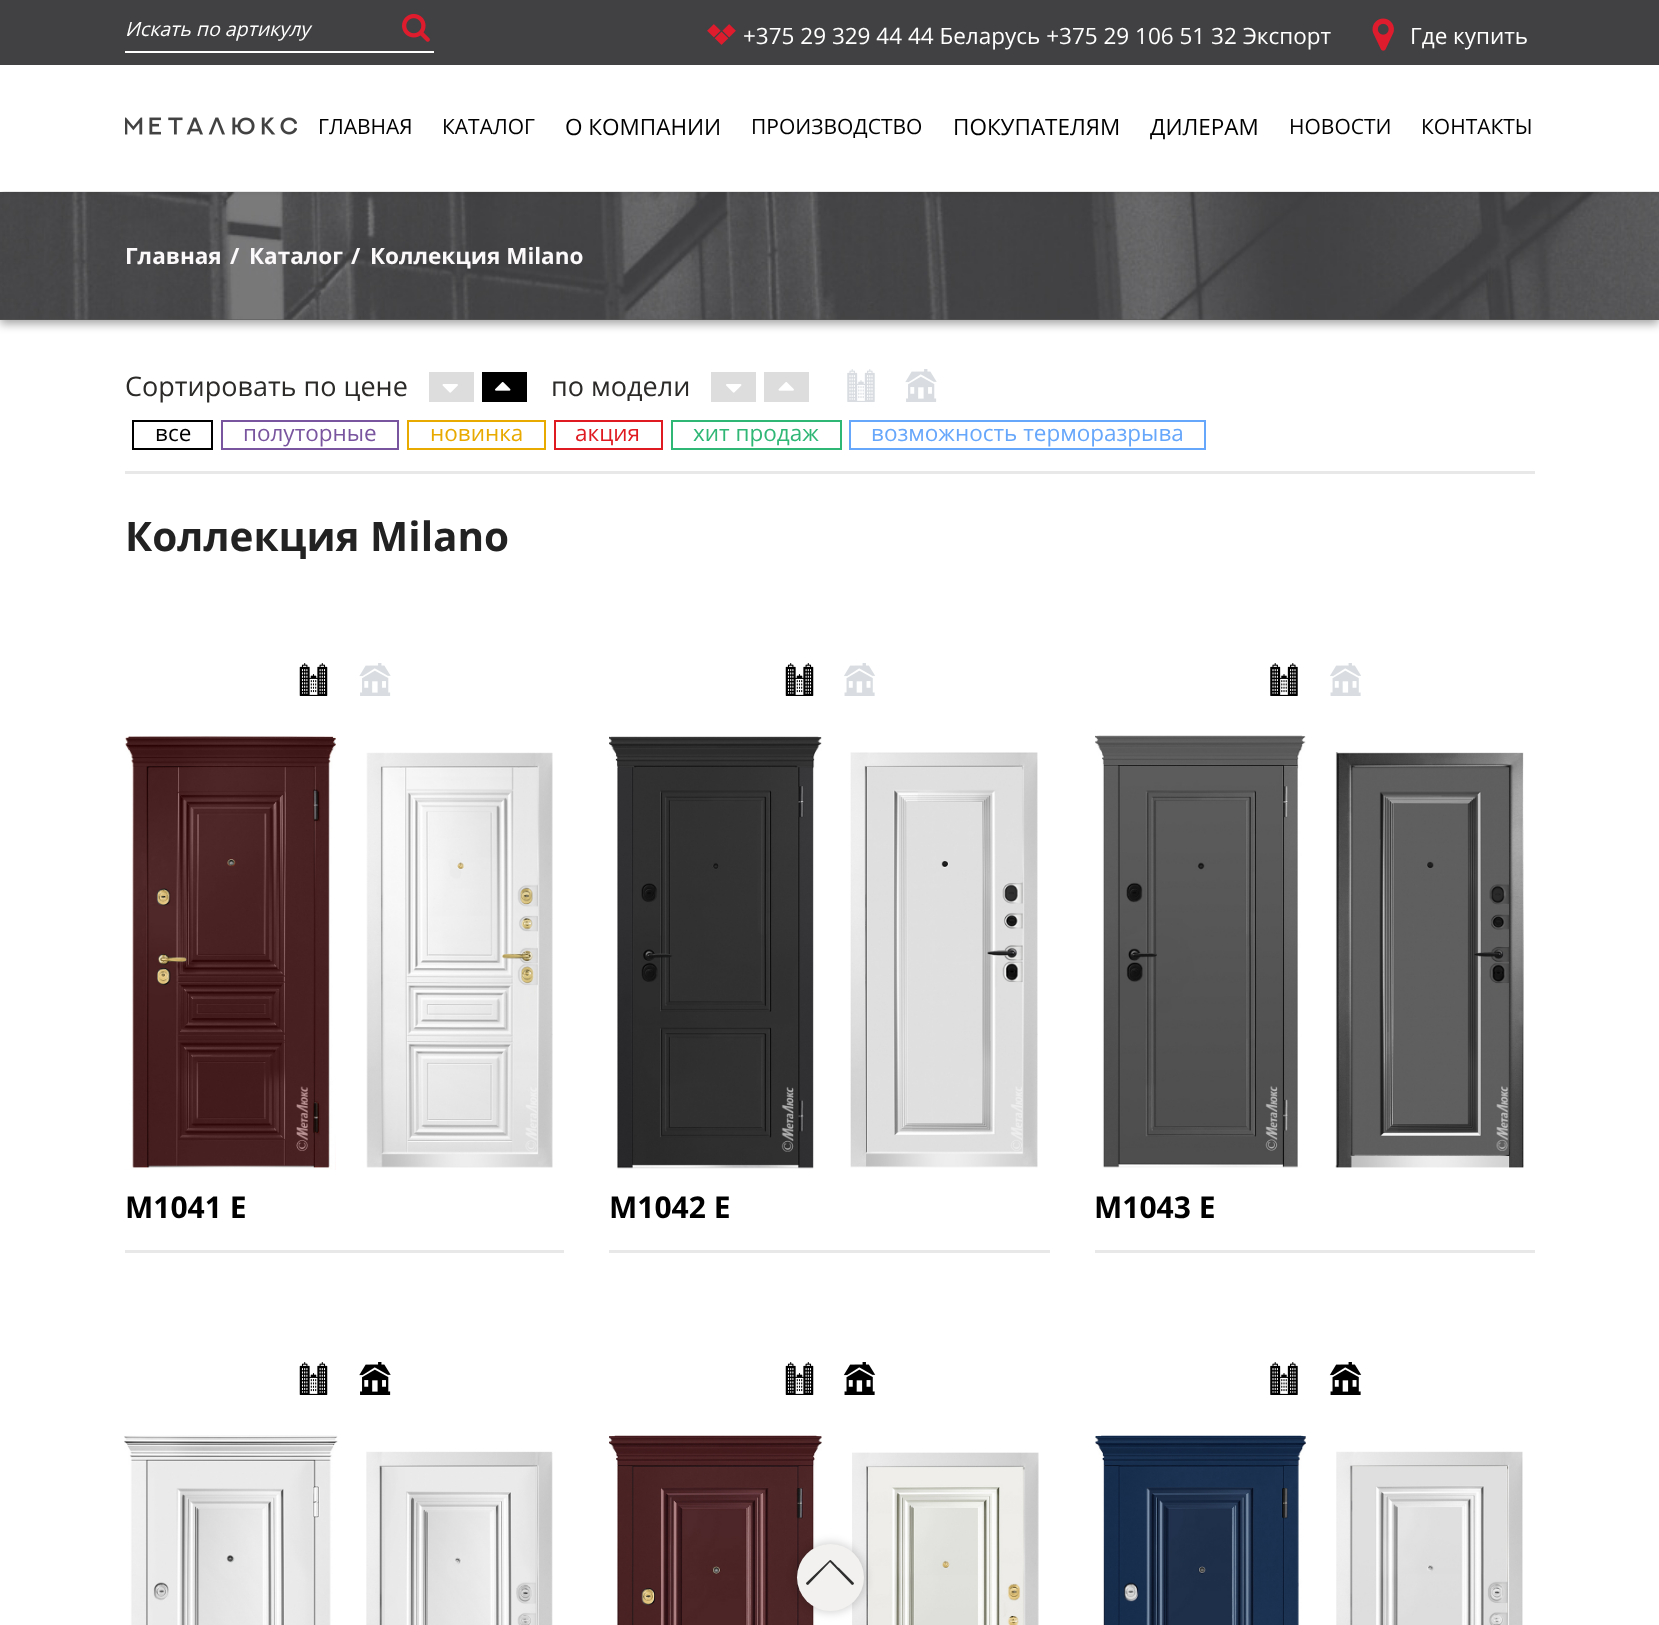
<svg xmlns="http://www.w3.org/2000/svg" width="1659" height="1625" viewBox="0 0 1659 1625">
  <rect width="100%" height="100%" fill="rgb(255,255,255)"/>
  <rect x="0" y="197" width="1659" height="127" fill="rgba(0,0,0,0.35)" filter="blur(5px)"/>
  <rect x="0" y="319" width="1659" height="1" fill="rgb(89,88,89)"/>
  <image x="0" y="192" width="1659" height="128" href="pic5.png"/>
  <rect x="2" y="3" width="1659" height="191" fill="rgba(0,0,0,0.05)" filter="blur(1.5px)"/>
  <rect x="0" y="0" width="1659" height="65" fill="rgb(65,64,66)"/>
  <rect x="125" y="51" width="309" height="2" fill="rgb(255,255,255)"/>
  <text x="125" y="36" font-family="Open Sans" font-size="19.5" font-style="italic" fill="rgb(255,255,255)">Искать по артикулу</text>
  <image x="402" y="13" width="28" height="29" href="pic1.png"/>
  <image x="707" y="24" width="29" height="21" href="pic2.png"/>
  <text x="743" y="44" font-family="Open Sans" font-size="22.5" fill="rgb(255,255,255)">+375 29 329 44 44 Беларусь +375 29 106 51 32 Экспорт</text>
  <image x="1372" y="18" width="22" height="33" href="pic3.png"/>
  <text x="1410" y="44" font-family="Open Sans" font-size="22.5" fill="rgb(255,255,255)">Где купить</text>
  <rect x="0" y="65" width="1659" height="126" fill="rgb(255,255,255)"/>
  <image x="125" y="117" width="172" height="18" href="pic4.png"/>
  <g font-family="Open Sans" font-size="21" fill="rgb(0,0,0)">
    <text x="318" y="134">ГЛАВНАЯ</text>
    <text x="442" y="134">КАТАЛОГ</text>
  </g>
  <text x="565" y="135" font-family="Open Sans" font-size="22.5" fill="rgb(0,0,0)">О КОМПАНИИ</text>
  <text x="751" y="134" font-family="Open Sans" font-size="21" fill="rgb(0,0,0)">ПРОИЗВОДСТВО</text>
  <g font-family="Open Sans" font-size="22.5" fill="rgb(0,0,0)">
    <text x="953" y="135">ПОКУПАТЕЛЯМ</text>
    <text x="1150" y="135">ДИЛЕРАМ</text>
  </g>
  <g font-family="Open Sans" font-size="21" fill="rgb(0,0,0)">
    <text x="1289" y="134">НОВОСТИ</text>
    <text x="1421" y="134">КОНТАКТЫ</text>
  </g>
  <g font-family="Open Sans" font-size="22.5" font-weight="bold" fill="rgb(252,249,250)">
    <text x="125" y="264">Главная</text>
    <text x="230" y="264">/</text>
    <text x="249" y="264">Каталог</text>
    <text x="351" y="264">/</text>
    <text x="370" y="264">Коллекция Milano</text>
  </g>
  <rect x="125" y="471" width="1410" height="3" fill="rgb(232,232,232)"/>
  <text x="125" y="396" font-family="Open Sans" font-size="27" fill="rgb(43,42,41)">Сортировать по цене</text>
  <rect x="429" y="372" width="45" height="30" fill="rgb(221,221,221)"/>
  <image x="442" y="384" width="16" height="9" href="pic6.png"/>
  <rect x="482" y="372" width="45" height="30" fill="rgb(0,0,0)"/>
  <image x="495" y="382" width="16" height="9" href="pic7.png"/>
  <text x="551" y="396" font-family="Open Sans" font-size="27" fill="rgb(43,42,41)">по модели</text>
  <rect x="711" y="372" width="45" height="30" fill="rgb(221,221,221)"/>
  <image x="726" y="384" width="16" height="9" href="pic8.png"/>
  <rect x="764" y="372" width="45" height="30" fill="rgb(221,221,221)"/>
  <image x="778" y="382" width="16" height="9" href="pic9.png"/>
  <image x="847" y="369" width="28" height="33" href="pic10.png"/>
  <image x="905" y="369" width="32" height="33" href="pic11.png"/>
  <rect x="133" y="421" width="79" height="28" fill="none" stroke="rgb(0,0,0)" stroke-width="2"/>
  <text x="155" y="441" font-family="Open Sans" font-size="22.5" fill="rgb(0,0,0)">все</text>
  <rect x="222" y="421" width="176" height="28" fill="none" stroke="rgb(122,85,159)" stroke-width="2"/>
  <text x="243" y="441" font-family="Open Sans" font-size="22.5" fill="rgb(122,85,159)">полуторные</text>
  <rect x="408" y="421" width="137" height="28" fill="none" stroke="rgb(233,170,0)" stroke-width="2"/>
  <text x="430" y="441" font-family="Open Sans" font-size="22.5" fill="rgb(233,170,0)">новинка</text>
  <rect x="555" y="421" width="107" height="28" fill="none" stroke="rgb(223,27,33)" stroke-width="2"/>
  <text x="575" y="441" font-family="Open Sans" font-size="22.5" fill="rgb(223,27,33)">акция</text>
  <rect x="672" y="421" width="169" height="28" fill="none" stroke="rgb(47,183,118)" stroke-width="2"/>
  <text x="693" y="441" font-family="Open Sans" font-size="22.5" fill="rgb(47,183,118)">хит продаж</text>
  <rect x="850" y="421" width="355" height="28" fill="none" stroke="rgb(103,167,251)" stroke-width="2"/>
  <text x="871" y="441" font-family="Open Sans" font-size="22.5" fill="rgb(103,167,251)">возможность терморазрыва</text>
  <text x="125" y="551" font-family="Open Sans" font-size="40.5" font-weight="bold" fill="rgb(34,34,34)">Коллекция Milano</text>
  <image x="299" y="663" width="29" height="33" href="pic12.png"/>
  <image x="359" y="663" width="32" height="33" href="pic11.png"/>
  <image x="125" y="736" width="211" height="434" href="pic13.png"/>
  <image x="366" y="752" width="187" height="416" href="pic14.png"/>
  <text x="125" y="1218" font-family="Open Sans" font-size="30" font-weight="bold" fill="rgb(0,0,0)">М1041 Е</text>
  <rect x="125" y="1250" width="439" height="3" fill="rgb(232,232,232)"/>
  <image x="785" y="663" width="29" height="33" href="pic12.png"/>
  <image x="844" y="663" width="31" height="33" href="pic15.png"/>
  <image x="609" y="736" width="213" height="433" href="pic16.png"/>
  <image x="850" y="752" width="188" height="416" href="pic17.png"/>
  <text x="609" y="1218" font-family="Open Sans" font-size="30" font-weight="bold" fill="rgb(0,0,0)">М1042 Е</text>
  <rect x="609" y="1250" width="441" height="3" fill="rgb(232,232,232)"/>
  <image x="1270" y="663" width="28" height="33" href="pic18.png"/>
  <image x="1330" y="663" width="31" height="33" href="pic15.png"/>
  <image x="1095" y="735" width="211" height="433" href="pic19.png"/>
  <image x="1335" y="752" width="189" height="416" href="pic20.png"/>
  <text x="1094" y="1218" font-family="Open Sans" font-size="30" font-weight="bold" fill="rgb(0,0,0)">М1043 Е</text>
  <rect x="1095" y="1250" width="440" height="3" fill="rgb(232,232,232)"/>
  <image x="299" y="1362" width="29" height="33" href="pic12.png"/>
  <image x="359" y="1362" width="32" height="33" href="pic21.png"/>
  <image x="124" y="1435" width="214" height="190" href="pic22.png"/>
  <image x="366" y="1451" width="187" height="174" href="pic23.png"/>
  <image x="785" y="1362" width="29" height="33" href="pic12.png"/>
  <image x="843" y="1362" width="33" height="33" href="pic24.png"/>
  <image x="609" y="1435" width="213" height="190" href="pic25.png"/>
  <image x="852" y="1452" width="187" height="173" href="pic26.png"/>
  <image x="1270" y="1362" width="28" height="33" href="pic18.png"/>
  <image x="1329" y="1362" width="33" height="33" href="pic24.png"/>
  <image x="1095" y="1435" width="211" height="190" href="pic27.png"/>
  <image x="1336" y="1451" width="187" height="174" href="pic28.png"/>
  <rect x="795" y="1542" width="71" height="71" rx="35.5" fill="rgba(0,0,0,0.16)" filter="blur(4.5px)"/>
  <circle cx="830.5" cy="1577.5" r="33.5" fill="rgb(242,241,239)"/>
  <path d="M830 1562L808 1585C807 1585 806 1584 806 1583L830 1560C831 1559 837 1567 839 1568L854 1583C854 1584 853 1585 852 1585Z" fill="rgb(47,47,47)"/>
</svg>
